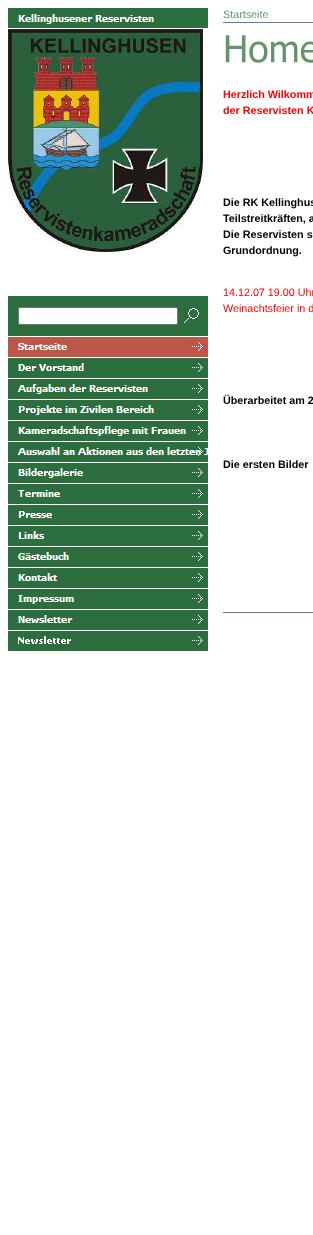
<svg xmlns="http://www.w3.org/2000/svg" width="313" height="1235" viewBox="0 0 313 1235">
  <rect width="100%" height="100%" fill="rgb(255,255,255)"/>
  <image x="8" y="8" width="200" height="20" href="pic1.png"/>
  <image x="8" y="29" width="200" height="224" href="pic2.png"/>
  <rect x="8" y="296" width="200" height="40" fill="rgb(45,110,62)"/>
  <rect x="18.5" y="307.5" width="159" height="17" rx="1.5" fill="rgb(255,255,255)" stroke="rgb(118,118,118)"/>
  <image x="184" y="308" width="15" height="15" href="pic3.png"/>
  <image x="8" y="337" width="200" height="20" href="pic4.png"/>
  <image x="8" y="358" width="200" height="20" href="pic5.png"/>
  <image x="8" y="379" width="200" height="20" href="pic6.png"/>
  <image x="8" y="400" width="200" height="20" href="pic7.png"/>
  <image x="8" y="421" width="200" height="20" href="pic8.png"/>
  <image x="8" y="442" width="200" height="20" href="pic9.png"/>
  <image x="8" y="463" width="200" height="20" href="pic10.png"/>
  <image x="8" y="484" width="200" height="20" href="pic11.png"/>
  <image x="8" y="505" width="200" height="20" href="pic12.png"/>
  <image x="8" y="526" width="200" height="20" href="pic13.png"/>
  <image x="8" y="547" width="200" height="20" href="pic14.png"/>
  <image x="8" y="568" width="200" height="20" href="pic15.png"/>
  <image x="8" y="589" width="200" height="20" href="pic16.png"/>
  <image x="8" y="610" width="200" height="20" href="pic17.png"/>
  <image x="8" y="631" width="200" height="20" href="pic18.png"/>
  <text x="223" y="18" font-family="Liberation Sans" font-size="10.75" fill="rgb(98,150,109)">Startseite</text>
  <rect x="223" y="22" width="90" height="1" fill="rgb(94,128,156)"/>
  <image x="225" y="35" width="88" height="28" href="pic19.png"/>
  <g font-family="Liberation Sans" font-size="10.75" font-weight="bold" fill="rgb(255,0,0)">
    <text>
      <tspan x="223" y="98">Herzlich Wilkomm</tspan>
      <tspan x="223" y="114">der Reservisten K</tspan>
    </text>
  </g>
  <g font-family="Liberation Sans" font-size="10.75" font-weight="bold" fill="rgb(0,0,0)">
    <text>
      <tspan x="223" y="206">Die RK Kellinghus</tspan>
      <tspan x="223" y="222">Teilstreitkräften, a</tspan>
      <tspan x="223" y="238">Die Reservisten s</tspan>
      <tspan x="223" y="254">Grundordnung.</tspan>
    </text>
  </g>
  <g font-family="Liberation Sans" font-size="10.75" fill="rgb(255,0,0)">
    <text>
      <tspan x="223" y="296">14.12.07 19.00 Uhr</tspan>
      <tspan x="223" y="312">Weinachtsfeier in d</tspan>
    </text>
  </g>
  <g font-family="Liberation Sans" font-size="10.75" font-weight="bold" fill="rgb(0,0,0)">
    <text x="223" y="404">Überarbeitet am 2</text>
    <text x="223" y="468">Die ersten Bilder</text>
  </g>
  <rect x="223" y="612" width="90" height="1" fill="rgb(94,128,156)"/>
</svg>
